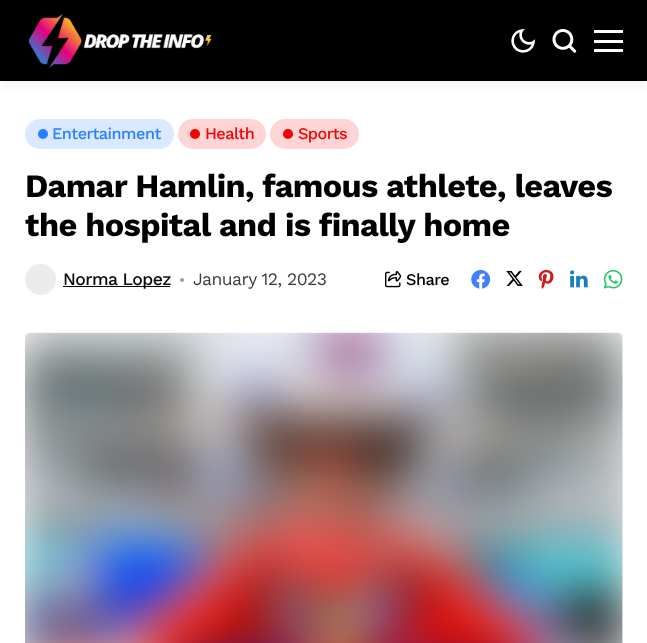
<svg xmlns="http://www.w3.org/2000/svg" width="647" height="643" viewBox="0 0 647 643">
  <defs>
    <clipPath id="clip1"><rect x="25" y="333" width="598" height="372"/></clipPath>
  </defs>
  <rect width="100%" height="100%" fill="rgb(255,255,255)"/>
  <rect x="0" y="3" width="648" height="81" fill="rgba(0,0,0,0.06)" filter="blur(5.5px)"/>
  <rect x="0" y="0" width="647" height="81" fill="rgb(0,0,0)"/>
  <image x="28" y="14" width="184" height="54" href="pic1.png"/>
  <image x="511" y="29" width="24" height="24" href="pic2.png"/>
  <image x="552" y="29" width="25" height="24" href="pic3.png"/>
  <rect x="594" y="30" width="29" height="3" fill="rgb(255,255,255)"/>
  <rect x="594" y="40" width="29" height="3" fill="rgb(255,255,255)"/>
  <rect x="594" y="49" width="29" height="3" fill="rgb(255,255,255)"/>
  <rect x="25" y="119" width="149" height="30" rx="15" fill="rgb(218,233,255)"/>
  <circle cx="43" cy="134" r="5" fill="rgb(38,128,255)"/>
  <text x="52" y="139" font-family="Work Sans" font-size="16.25" font-weight="500" letter-spacing="-0.5" fill="rgb(38,128,255)">Entertainment</text>
  <rect x="178" y="119" width="88" height="30" rx="15" fill="rgb(254,212,212)"/>
  <circle cx="195" cy="134" r="5" fill="rgb(247,0,0)"/>
  <text x="205" y="139" font-family="Work Sans" font-size="16.25" font-weight="500" letter-spacing="-0.5" fill="rgb(247,0,0)">Health</text>
  <rect x="270" y="119" width="89" height="30" rx="15" fill="rgb(254,212,212)"/>
  <circle cx="288" cy="134" r="5" fill="rgb(247,0,0)"/>
  <text x="298" y="139" font-family="Work Sans" font-size="16.25" font-weight="500" letter-spacing="-0.5" fill="rgb(247,0,0)">Sports</text>
  <g font-family="Work Sans" font-size="32.5" font-weight="bold" letter-spacing="-0.65" fill="rgb(0,0,0)">
    <text>
      <tspan x="25" y="197">Damar Hamlin, famous athlete, leaves</tspan>
      <tspan x="25" y="236">the hospital and is finally home</tspan>
    </text>
  </g>
  <circle cx="182" cy="280" r="2" fill="rgb(157,157,157)"/>
  <image x="385" y="271" width="17" height="17" href="pic5.png"/>
  <image x="471" y="269" width="20" height="20" href="pic6.png"/>
  <image x="506" y="270" width="17" height="16" href="pic7.png"/>
  <image x="538" y="269" width="16" height="20" href="pic8.png"/>
  <image x="570" y="270" width="18" height="18" href="pic9.png"/>
  <image x="603" y="269" width="20" height="20" href="pic10.png"/>
  <g clip-path="url(#clip1)">
    <rect x="25" y="333" width="598" height="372" rx="6" fill="rgb(206,212,218)" filter="blur(25px)"/>
  </g>
  <image x="25" y="264" width="31" height="31" href="pic4.png"/>
  <rect x="63" y="286" width="107" height="1" fill="rgb(10,10,10)"/>
  <text x="63" y="285" font-family="Work Sans" font-size="17.5" font-weight="500" letter-spacing="-0.5" fill="rgb(10,10,10)">Norma Lopez</text>
  <text x="193" y="285" font-family="Work Sans" font-size="17.5" letter-spacing="-0.5" fill="rgb(59,59,59)">January 12, 2023</text>
  <text x="406" y="285" font-family="Work Sans" font-size="16.25" font-weight="500" letter-spacing="-0.5" fill="rgb(0,0,0)">Share</text>
  <image x="25" y="332" width="598" height="311" href="pic11.png"/>
</svg>
